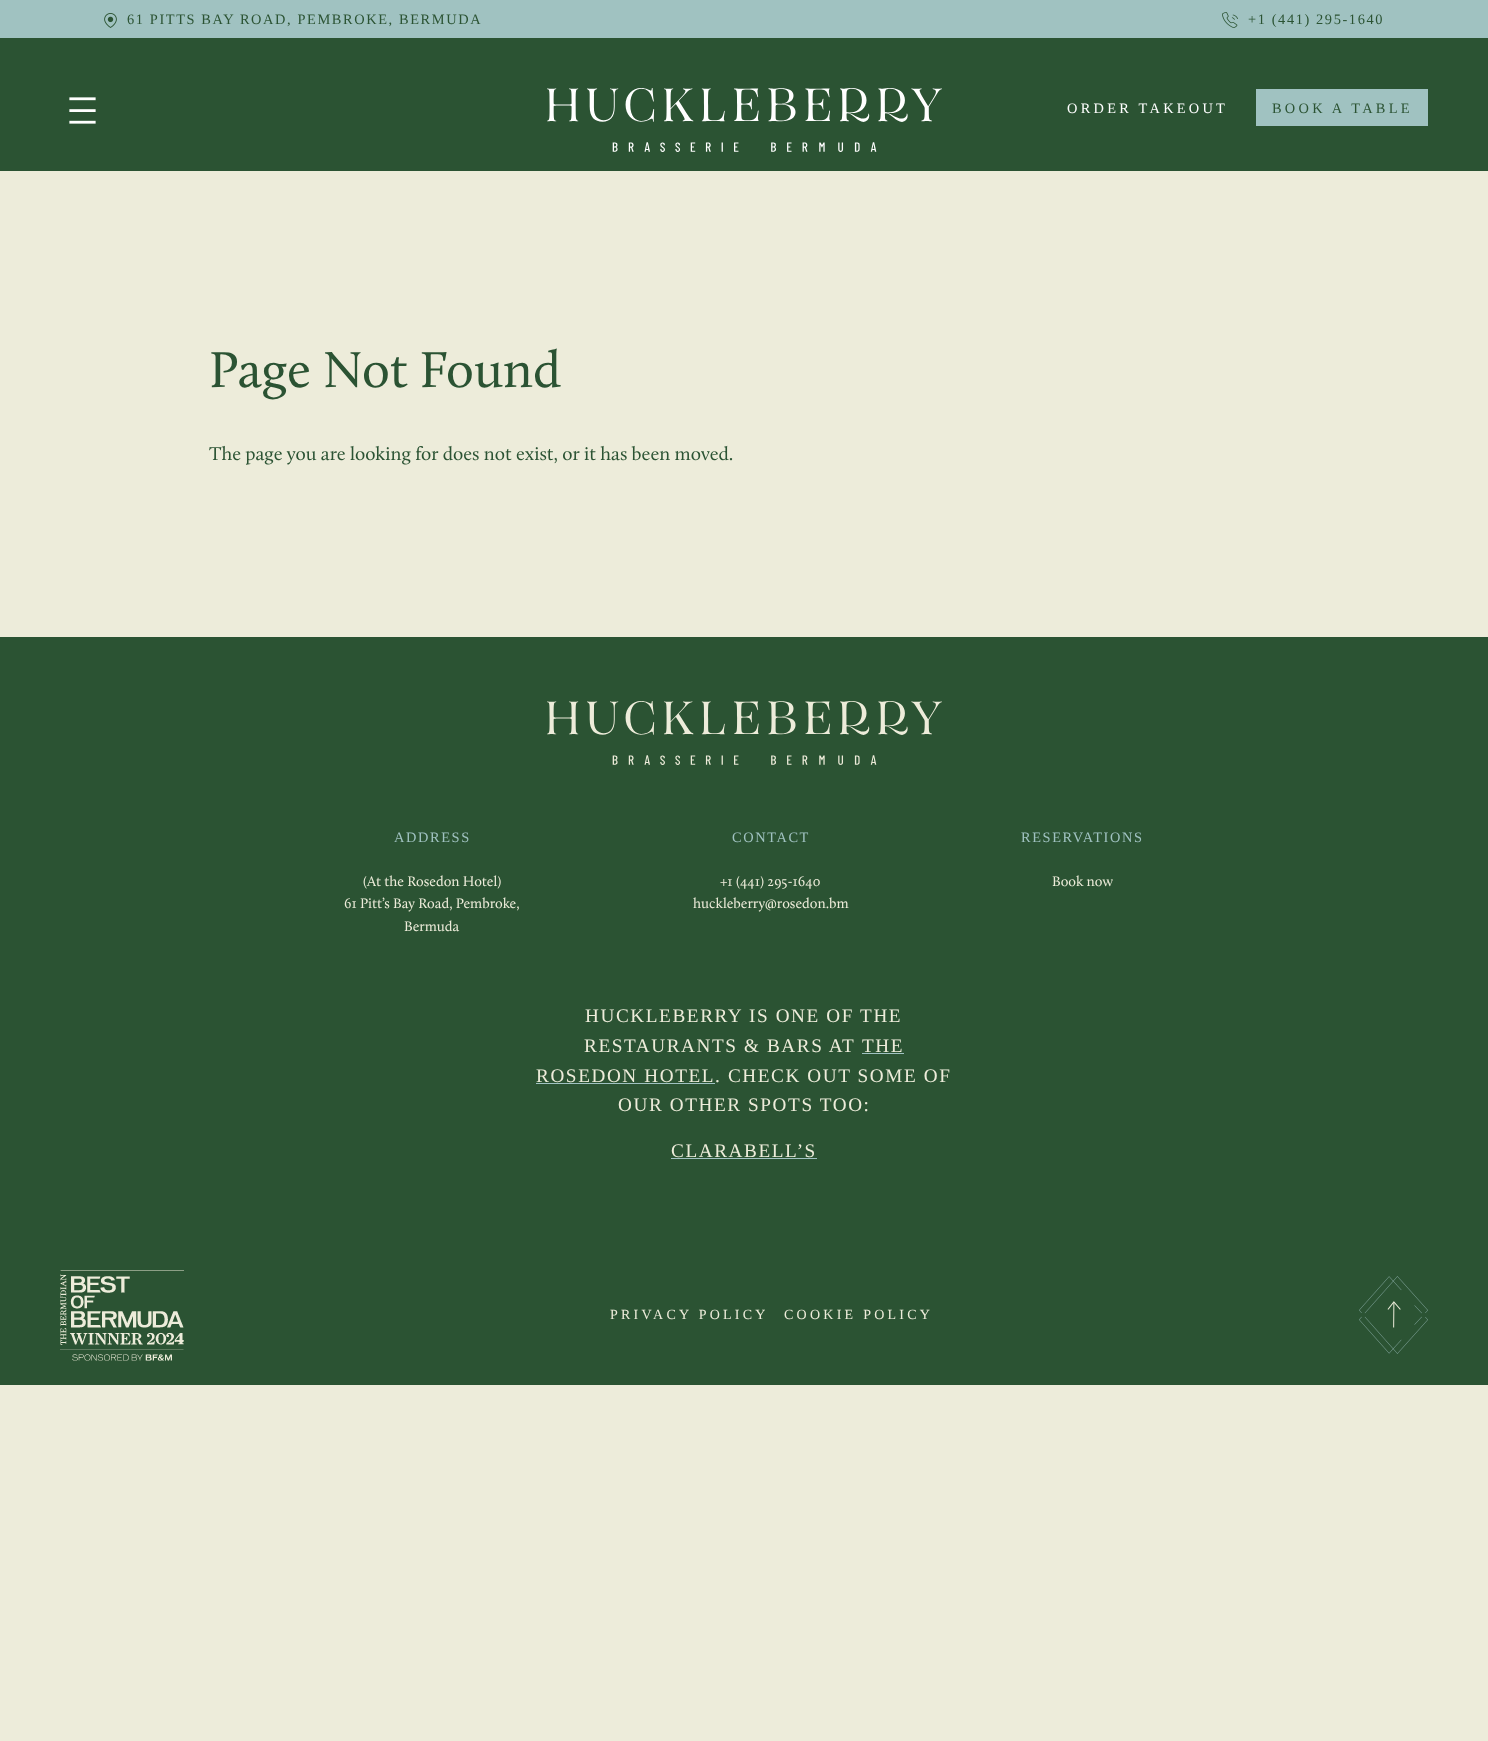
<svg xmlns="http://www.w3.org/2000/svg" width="1488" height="1741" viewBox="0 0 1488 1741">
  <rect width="100%" height="100%" fill="rgb(237,236,218)"/>
  <rect x="0" y="0" width="1488" height="38" fill="rgb(160,194,193)"/>
  <image x="104" y="13" width="13" height="15" href="pic1.png"/>
  <text x="127" y="24" font-family="Liberation Serif" font-size="14.4" letter-spacing="1.6" fill="rgb(43,83,51)">61 PITTS BAY ROAD, PEMBROKE, BERMUDA</text>
  <image x="1222" y="12" width="16" height="16" href="pic2.png"/>
  <text x="1248" y="24" font-family="Liberation Serif" font-size="14.4" letter-spacing="1.6" fill="rgb(43,83,51)">+1 (441) 295-1640</text>
  <rect x="0" y="38" width="1488" height="133" fill="rgb(43,83,51)"/>
  <image x="69" y="97" width="27" height="27" href="pic3.png"/>
  <image x="547" y="88" width="395" height="64" href="pic4.png"/>
  <text x="1067" y="113" font-family="Liberation Serif" font-size="14.4" letter-spacing="3.25" fill="rgb(255,255,255)">ORDER TAKEOUT</text>
  <rect x="1256" y="89" width="172" height="37" fill="rgb(160,194,193)"/>
  <text x="1272" y="113" font-family="Liberation Serif" font-size="14.4" letter-spacing="3.25" fill="rgb(43,83,51)">BOOK A TABLE</text>
  <text x="209" y="387" font-family="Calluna" font-size="52.25" fill="rgb(43,83,51)">Page Not Found</text>
  <text x="209" y="460" font-family="Calluna" font-size="19.2" fill="rgb(43,83,51)">The page you are looking for does not exist, or it has been moved.</text>
  <rect x="0" y="637" width="1488" height="748" fill="rgb(43,83,51)"/>
  <image x="547" y="701" width="395" height="64" href="pic5.png"/>
  <text x="394" y="842" font-family="Liberation Serif" font-size="14.4" letter-spacing="1.6" fill="rgb(160,194,193)">ADDRESS</text>
  <g font-family="Calluna" font-size="14.4" fill="rgb(237,236,218)">
    <text x="363" y="886">(At the Rosedon Hotel)</text>
    <text x="344" y="908">61 Pitt’s Bay Road, Pembroke,</text>
    <text x="404" y="931">Bermuda</text>
  </g>
  <text x="732" y="842" font-family="Liberation Serif" font-size="14.4" letter-spacing="1.6" fill="rgb(160,194,193)">CONTACT</text>
  <g font-family="Calluna" font-size="14.4" fill="rgb(237,236,218)">
    <text x="720" y="886">+1 (441) 295-1640</text>
    <text x="693" y="908">huckleberry@rosedon.bm</text>
  </g>
  <text x="1021" y="842" font-family="Liberation Serif" font-size="14.4" letter-spacing="1.6" fill="rgb(160,194,193)">RESERVATIONS</text>
  <text x="1052" y="886" font-family="Calluna" font-size="14.4" fill="rgb(237,236,218)">Book now</text>
  <g font-family="Liberation Serif" font-size="19.2" letter-spacing="1.6" fill="rgb(237,236,218)">
    <text x="585" y="1022">HUCKLEBERRY IS ONE OF THE</text>
    <text x="584" y="1052">RESTAURANTS &amp; BARS AT</text>
    <text x="862" y="1052">THE</text>
  </g>
  <rect x="862" y="1053" width="42" height="1" fill="rgb(160,194,193)"/>
  <text x="536" y="1082" font-family="Liberation Serif" font-size="19.2" letter-spacing="1.6" fill="rgb(237,236,218)">ROSEDON HOTEL. CHECK OUT SOME OF</text>
  <rect x="536" y="1083" width="179" height="1" fill="rgb(160,194,193)"/>
  <g font-family="Liberation Serif" font-size="19.2" letter-spacing="1.6" fill="rgb(237,236,218)">
    <text x="618" y="1111">OUR OTHER SPOTS TOO:</text>
    <text x="671" y="1157">CLARABELL’S</text>
  </g>
  <rect x="671" y="1158" width="146" height="1" fill="rgb(160,194,193)"/>
  <image x="60" y="1270" width="124" height="91" href="pic6.png"/>
  <g font-family="Liberation Serif" font-size="14" letter-spacing="3.25" fill="rgb(237,236,218)">
    <text x="610" y="1319">PRIVACY POLICY</text>
    <text x="784" y="1319">COOKIE POLICY</text>
  </g>
  <image x="1359" y="1276" width="69" height="78" href="pic7.png"/>
</svg>
